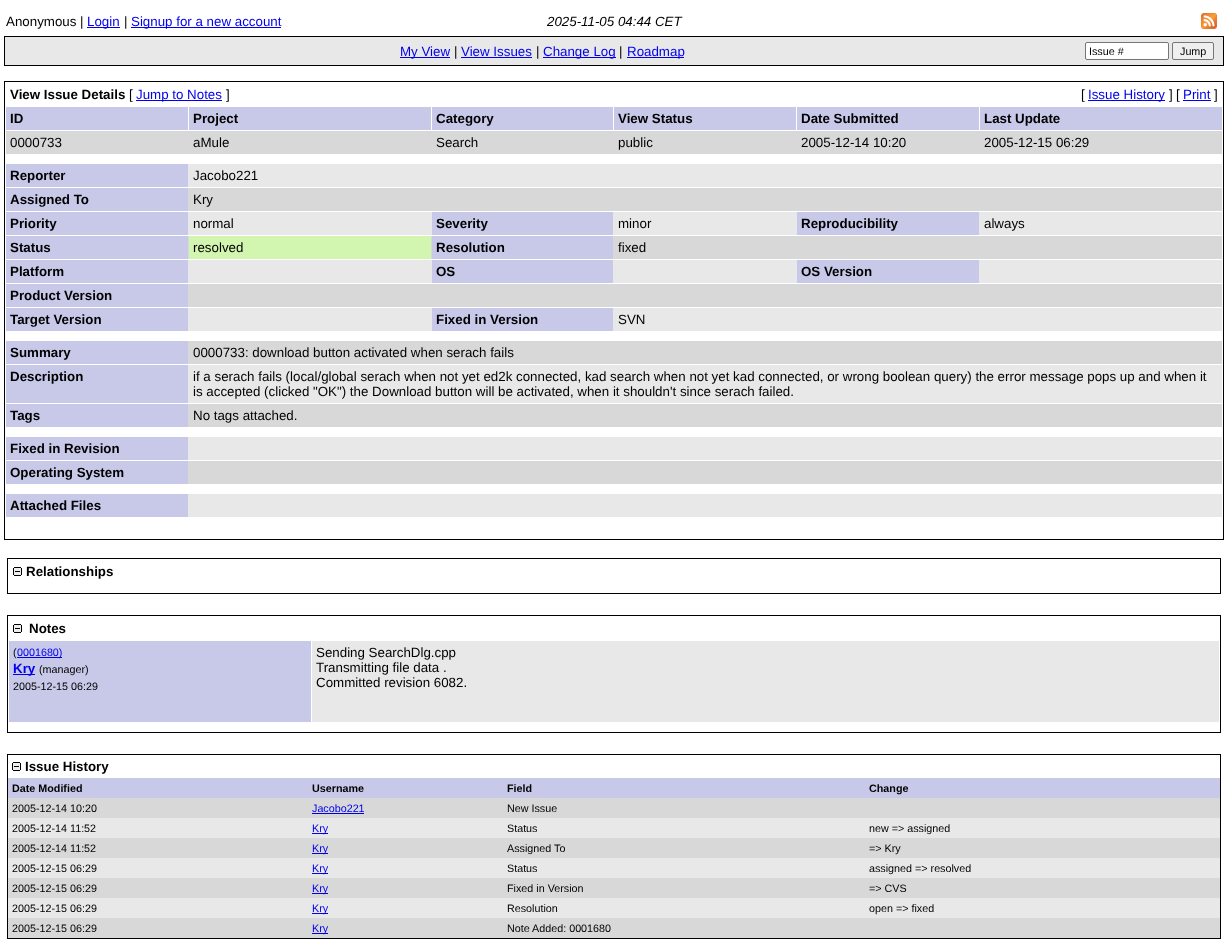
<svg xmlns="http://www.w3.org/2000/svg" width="1228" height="941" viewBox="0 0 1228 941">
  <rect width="100%" height="100%" fill="rgb(255,255,255)"/>
  <text x="6" y="26" font-family="Liberation Sans" font-size="13.33" fill="rgb(0,0,0)">Anonymous |</text>
  <rect x="87" y="27" width="33" height="1" fill="rgb(0,0,238)"/>
  <text x="87" y="26" font-family="Liberation Sans" font-size="13.33" fill="rgb(0,0,238)">Login</text>
  <text x="124" y="26" font-family="Liberation Sans" font-size="13.33" fill="rgb(0,0,0)">|</text>
  <rect x="131" y="27" width="150" height="1" fill="rgb(0,0,238)"/>
  <text x="131" y="26" font-family="Liberation Sans" font-size="13.33" fill="rgb(0,0,238)">Signup for a new account</text>
  <text x="547" y="26" font-family="Liberation Sans" font-size="13.33" font-style="italic" fill="rgb(0,0,0)">2025-11-05 04:44 CET</text>
  <image x="1201" y="13" width="16" height="16" href="pic1.png"/>
  <rect x="4.5" y="36.5" width="1219" height="29" fill="none" stroke="rgb(0,0,0)"/>
  <rect x="5" y="37" width="1218" height="28" fill="rgb(232,232,232)"/>
  <rect x="400" y="57" width="50" height="1" fill="rgb(0,0,238)"/>
  <text x="400" y="56" font-family="Liberation Sans" font-size="13.33" fill="rgb(0,0,238)">My View</text>
  <text x="454" y="56" font-family="Liberation Sans" font-size="13.33" fill="rgb(0,0,0)">|</text>
  <text x="461" y="56" font-family="Liberation Sans" font-size="13.33" fill="rgb(0,0,238)">View Issues</text>
  <rect x="461" y="57" width="71" height="1" fill="rgb(0,0,238)"/>
  <text x="536" y="56" font-family="Liberation Sans" font-size="13.33" fill="rgb(0,0,0)">|</text>
  <rect x="543" y="57" width="73" height="1" fill="rgb(0,0,238)"/>
  <text x="543" y="56" font-family="Liberation Sans" font-size="13.33" fill="rgb(0,0,238)">Change Log</text>
  <text x="619" y="56" font-family="Liberation Sans" font-size="13.33" fill="rgb(0,0,0)">|</text>
  <rect x="627" y="57" width="57" height="1" fill="rgb(0,0,238)"/>
  <text x="627" y="56" font-family="Liberation Sans" font-size="13.33" fill="rgb(0,0,238)">Roadmap</text>
  <rect x="1085.5" y="42.5" width="83" height="17" rx="1.5" fill="rgb(255,255,255)" stroke="rgb(118,118,118)"/>
  <text x="1089" y="55" font-family="Liberation Sans" font-size="10.75" fill="rgb(0,0,0)">Issue #</text>
  <rect x="1172.5" y="42.5" width="41" height="17" rx="1.5" fill="rgb(239,239,239)" stroke="rgb(118,118,118)"/>
  <text x="1180" y="55" font-family="Liberation Sans" font-size="10.75" fill="rgb(0,0,0)">Jump</text>
  <rect x="4.5" y="81.5" width="1219" height="458" fill="none" stroke="rgb(0,0,0)"/>
  <text x="10" y="99" font-family="Liberation Sans" font-size="13.33" font-weight="bold" fill="rgb(0,0,0)">View Issue Details</text>
  <text x="129" y="99" font-family="Liberation Sans" font-size="13.33" fill="rgb(0,0,0)">[</text>
  <rect x="136" y="100" width="86" height="1" fill="rgb(0,0,238)"/>
  <text x="136" y="99" font-family="Liberation Sans" font-size="13.33" fill="rgb(0,0,238)">Jump to Notes</text>
  <g font-family="Liberation Sans" font-size="13.33" fill="rgb(0,0,0)">
    <text x="226" y="99">]</text>
    <text x="1081" y="99">[</text>
  </g>
  <rect x="1088" y="100" width="77" height="1" fill="rgb(0,0,238)"/>
  <text x="1088" y="99" font-family="Liberation Sans" font-size="13.33" fill="rgb(0,0,238)">Issue History</text>
  <g font-family="Liberation Sans" font-size="13.33" fill="rgb(0,0,0)">
    <text x="1169" y="99">]</text>
    <text x="1176" y="99">[</text>
  </g>
  <text x="1183" y="99" font-family="Liberation Sans" font-size="13.33" fill="rgb(0,0,238)">Print</text>
  <rect x="1183" y="100" width="28" height="1" fill="rgb(0,0,238)"/>
  <text x="1214" y="99" font-family="Liberation Sans" font-size="13.33" fill="rgb(0,0,0)">]</text>
  <rect x="6" y="107" width="182" height="23" fill="rgb(200,200,232)"/>
  <text x="10" y="123" font-family="Liberation Sans" font-size="13.33" font-weight="bold" fill="rgb(0,0,0)">ID</text>
  <rect x="189" y="107" width="242" height="23" fill="rgb(200,200,232)"/>
  <text x="193" y="123" font-family="Liberation Sans" font-size="13.33" font-weight="bold" fill="rgb(0,0,0)">Project</text>
  <rect x="432" y="107" width="181" height="23" fill="rgb(200,200,232)"/>
  <text x="436" y="123" font-family="Liberation Sans" font-size="13.33" font-weight="bold" fill="rgb(0,0,0)">Category</text>
  <rect x="614" y="107" width="182" height="23" fill="rgb(200,200,232)"/>
  <text x="618" y="123" font-family="Liberation Sans" font-size="13.33" font-weight="bold" fill="rgb(0,0,0)">View Status</text>
  <rect x="797" y="107" width="182" height="23" fill="rgb(200,200,232)"/>
  <text x="801" y="123" font-family="Liberation Sans" font-size="13.33" font-weight="bold" fill="rgb(0,0,0)">Date Submitted</text>
  <rect x="980" y="107" width="242" height="23" fill="rgb(200,200,232)"/>
  <text x="984" y="123" font-family="Liberation Sans" font-size="13.33" font-weight="bold" fill="rgb(0,0,0)">Last Update</text>
  <rect x="6" y="131" width="1216" height="23" fill="rgb(216,216,216)"/>
  <g font-family="Liberation Sans" font-size="13.33" fill="rgb(0,0,0)">
    <text x="10" y="147">0000733</text>
    <text x="193" y="147">aMule</text>
    <text x="436" y="147">Search</text>
    <text x="618" y="147">public</text>
    <text x="801" y="147">2005-12-14 10:20</text>
    <text x="984" y="147">2005-12-15 06:29</text>
  </g>
  <rect x="188" y="164" width="1034" height="23" fill="rgb(232,232,232)"/>
  <rect x="6" y="164" width="182" height="23" fill="rgb(200,200,232)"/>
  <text x="10" y="180" font-family="Liberation Sans" font-size="13.33" font-weight="bold" fill="rgb(0,0,0)">Reporter</text>
  <text x="193" y="180" font-family="Liberation Sans" font-size="13.33" fill="rgb(0,0,0)">Jacobo221</text>
  <rect x="188" y="188" width="1034" height="23" fill="rgb(216,216,216)"/>
  <rect x="6" y="188" width="182" height="23" fill="rgb(200,200,232)"/>
  <text x="10" y="204" font-family="Liberation Sans" font-size="13.33" font-weight="bold" fill="rgb(0,0,0)">Assigned To</text>
  <text x="193" y="204" font-family="Liberation Sans" font-size="13.33" fill="rgb(0,0,0)">Kry</text>
  <rect x="188" y="212" width="1034" height="23" fill="rgb(232,232,232)"/>
  <rect x="6" y="212" width="182" height="23" fill="rgb(200,200,232)"/>
  <text x="10" y="228" font-family="Liberation Sans" font-size="13.33" font-weight="bold" fill="rgb(0,0,0)">Priority</text>
  <text x="193" y="228" font-family="Liberation Sans" font-size="13.33" fill="rgb(0,0,0)">normal</text>
  <rect x="432" y="212" width="181" height="23" fill="rgb(200,200,232)"/>
  <text x="436" y="228" font-family="Liberation Sans" font-size="13.33" font-weight="bold" fill="rgb(0,0,0)">Severity</text>
  <text x="618" y="228" font-family="Liberation Sans" font-size="13.33" fill="rgb(0,0,0)">minor</text>
  <rect x="797" y="212" width="182" height="23" fill="rgb(200,200,232)"/>
  <text x="801" y="228" font-family="Liberation Sans" font-size="13.33" font-weight="bold" fill="rgb(0,0,0)">Reproducibility</text>
  <text x="984" y="228" font-family="Liberation Sans" font-size="13.33" fill="rgb(0,0,0)">always</text>
  <rect x="188" y="236" width="1034" height="23" fill="rgb(216,216,216)"/>
  <rect x="6" y="236" width="182" height="23" fill="rgb(200,200,232)"/>
  <text x="10" y="252" font-family="Liberation Sans" font-size="13.33" font-weight="bold" fill="rgb(0,0,0)">Status</text>
  <rect x="189" y="236" width="242" height="23" fill="rgb(210,245,176)"/>
  <text x="193" y="252" font-family="Liberation Sans" font-size="13.33" fill="rgb(0,0,0)">resolved</text>
  <rect x="432" y="236" width="181" height="23" fill="rgb(200,200,232)"/>
  <text x="436" y="252" font-family="Liberation Sans" font-size="13.33" font-weight="bold" fill="rgb(0,0,0)">Resolution</text>
  <text x="618" y="252" font-family="Liberation Sans" font-size="13.33" fill="rgb(0,0,0)">fixed</text>
  <rect x="188" y="260" width="1034" height="23" fill="rgb(232,232,232)"/>
  <rect x="6" y="260" width="182" height="23" fill="rgb(200,200,232)"/>
  <text x="10" y="276" font-family="Liberation Sans" font-size="13.33" font-weight="bold" fill="rgb(0,0,0)">Platform</text>
  <rect x="432" y="260" width="181" height="23" fill="rgb(200,200,232)"/>
  <text x="436" y="276" font-family="Liberation Sans" font-size="13.33" font-weight="bold" fill="rgb(0,0,0)">OS</text>
  <rect x="797" y="260" width="182" height="23" fill="rgb(200,200,232)"/>
  <text x="801" y="276" font-family="Liberation Sans" font-size="13.33" font-weight="bold" fill="rgb(0,0,0)">OS Version</text>
  <rect x="188" y="284" width="1034" height="23" fill="rgb(216,216,216)"/>
  <rect x="6" y="284" width="182" height="23" fill="rgb(200,200,232)"/>
  <text x="10" y="300" font-family="Liberation Sans" font-size="13.33" font-weight="bold" fill="rgb(0,0,0)">Product Version</text>
  <rect x="188" y="308" width="1034" height="23" fill="rgb(232,232,232)"/>
  <rect x="6" y="308" width="182" height="23" fill="rgb(200,200,232)"/>
  <text x="10" y="324" font-family="Liberation Sans" font-size="13.33" font-weight="bold" fill="rgb(0,0,0)">Target Version</text>
  <rect x="432" y="308" width="181" height="23" fill="rgb(200,200,232)"/>
  <text x="436" y="324" font-family="Liberation Sans" font-size="13.33" font-weight="bold" fill="rgb(0,0,0)">Fixed in Version</text>
  <text x="618" y="324" font-family="Liberation Sans" font-size="13.33" fill="rgb(0,0,0)">SVN</text>
  <rect x="188" y="341" width="1034" height="23" fill="rgb(216,216,216)"/>
  <rect x="6" y="341" width="182" height="23" fill="rgb(200,200,232)"/>
  <text x="10" y="357" font-family="Liberation Sans" font-size="13.33" font-weight="bold" fill="rgb(0,0,0)">Summary</text>
  <text x="193" y="357" font-family="Liberation Sans" font-size="13.33" fill="rgb(0,0,0)">0000733: download button activated when serach fails</text>
  <rect x="188" y="365" width="1034" height="38" fill="rgb(232,232,232)"/>
  <rect x="6" y="365" width="182" height="38" fill="rgb(200,200,232)"/>
  <text x="10" y="381" font-family="Liberation Sans" font-size="13.33" font-weight="bold" fill="rgb(0,0,0)">Description</text>
  <g font-family="Liberation Sans" font-size="13.33" fill="rgb(0,0,0)">
    <text>
      <tspan x="193" y="381">if a serach fails (local/global serach when not yet ed2k connected, kad search when not yet kad connected, or wrong boolean query) the error message pops up and when it</tspan>
      <tspan x="193" y="396">is accepted (clicked "OK") the Download button will be activated, when it shouldn't since serach failed.</tspan>
    </text>
  </g>
  <rect x="188" y="404" width="1034" height="23" fill="rgb(216,216,216)"/>
  <rect x="6" y="404" width="182" height="23" fill="rgb(200,200,232)"/>
  <text x="10" y="420" font-family="Liberation Sans" font-size="13.33" font-weight="bold" fill="rgb(0,0,0)">Tags</text>
  <text x="193" y="420" font-family="Liberation Sans" font-size="13.33" fill="rgb(0,0,0)">No tags attached.</text>
  <rect x="188" y="437" width="1034" height="23" fill="rgb(232,232,232)"/>
  <rect x="6" y="437" width="182" height="23" fill="rgb(200,200,232)"/>
  <text x="10" y="453" font-family="Liberation Sans" font-size="13.33" font-weight="bold" fill="rgb(0,0,0)">Fixed in Revision</text>
  <rect x="188" y="461" width="1034" height="23" fill="rgb(216,216,216)"/>
  <rect x="6" y="461" width="182" height="23" fill="rgb(200,200,232)"/>
  <text x="10" y="477" font-family="Liberation Sans" font-size="13.33" font-weight="bold" fill="rgb(0,0,0)">Operating System</text>
  <rect x="188" y="494" width="1034" height="23" fill="rgb(232,232,232)"/>
  <rect x="6" y="494" width="182" height="23" fill="rgb(200,200,232)"/>
  <text x="10" y="510" font-family="Liberation Sans" font-size="13.33" font-weight="bold" fill="rgb(0,0,0)">Attached Files</text>
  <rect x="7.5" y="558.5" width="1213" height="35" fill="none" stroke="rgb(0,0,0)"/>
  <image x="13" y="567" width="9" height="9" href="pic2.png"/>
  <text x="26" y="576" font-family="Liberation Sans" font-size="13.33" font-weight="bold" fill="rgb(0,0,0)">Relationships</text>
  <rect x="7.5" y="615.5" width="1213" height="117" fill="none" stroke="rgb(0,0,0)"/>
  <image x="13" y="624" width="9" height="9" href="pic2.png"/>
  <text x="29" y="633" font-family="Liberation Sans" font-size="13.33" font-weight="bold" fill="rgb(0,0,0)">Notes</text>
  <rect x="9" y="641" width="302" height="81" fill="rgb(200,200,232)"/>
  <text x="13" y="656" font-family="Liberation Sans" font-size="10.75" fill="rgb(0,0,0)">(</text>
  <rect x="17" y="657" width="45" height="1" fill="rgb(0,0,238)"/>
  <text x="17" y="656" font-family="Liberation Sans" font-size="10.75" fill="rgb(0,0,238)">0001680)</text>
  <rect x="13" y="674" width="22" height="1" fill="rgb(0,0,238)"/>
  <text x="13" y="673" font-family="Liberation Sans" font-size="13.33" font-weight="bold" fill="rgb(0,0,238)">Kry</text>
  <g font-family="Liberation Sans" font-size="10.75" fill="rgb(0,0,0)">
    <text x="39" y="673">(manager)</text>
    <text x="13" y="690">2005-12-15 06:29</text>
  </g>
  <rect x="312" y="641" width="907" height="81" fill="rgb(232,232,232)"/>
  <g font-family="Liberation Sans" font-size="13.33" fill="rgb(0,0,0)">
    <text>
      <tspan x="316" y="657">Sending SearchDlg.cpp</tspan>
      <tspan x="316" y="672">Transmitting file data .</tspan>
      <tspan x="316" y="687">Committed revision 6082.</tspan>
    </text>
  </g>
  <rect x="7.5" y="754.5" width="1213" height="184" fill="none" stroke="rgb(0,0,0)"/>
  <image x="12" y="762" width="9" height="9" href="pic2.png"/>
  <text x="25" y="771" font-family="Liberation Sans" font-size="13.33" font-weight="bold" fill="rgb(0,0,0)">Issue History</text>
  <rect x="8" y="778" width="1212" height="20" fill="rgb(200,200,232)"/>
  <g font-family="Liberation Sans" font-size="10.75" font-weight="bold" fill="rgb(0,0,0)">
    <text x="12" y="792">Date Modified</text>
    <text x="312" y="792">Username</text>
    <text x="507" y="792">Field</text>
    <text x="869" y="792">Change</text>
  </g>
  <rect x="8" y="798" width="1212" height="20" fill="rgb(216,216,216)"/>
  <text x="12" y="812" font-family="Liberation Sans" font-size="10.75" fill="rgb(0,0,0)">2005-12-14 10:20</text>
  <text x="312" y="812" font-family="Liberation Sans" font-size="10.75" fill="rgb(0,0,238)">Jacobo221</text>
  <rect x="312" y="813" width="52" height="1" fill="rgb(0,0,238)"/>
  <text x="507" y="812" font-family="Liberation Sans" font-size="10.75" fill="rgb(0,0,0)">New Issue</text>
  <rect x="8" y="818" width="1212" height="20" fill="rgb(232,232,232)"/>
  <text x="12" y="832" font-family="Liberation Sans" font-size="10.75" fill="rgb(0,0,0)">2005-12-14 11:52</text>
  <rect x="312" y="833" width="16" height="1" fill="rgb(0,0,238)"/>
  <text x="312" y="832" font-family="Liberation Sans" font-size="10.75" fill="rgb(0,0,238)">Kry</text>
  <g font-family="Liberation Sans" font-size="10.75" fill="rgb(0,0,0)">
    <text x="507" y="832">Status</text>
    <text x="869" y="832">new =&gt; assigned</text>
  </g>
  <rect x="8" y="838" width="1212" height="20" fill="rgb(216,216,216)"/>
  <text x="12" y="852" font-family="Liberation Sans" font-size="10.75" fill="rgb(0,0,0)">2005-12-14 11:52</text>
  <rect x="312" y="853" width="16" height="1" fill="rgb(0,0,238)"/>
  <text x="312" y="852" font-family="Liberation Sans" font-size="10.75" fill="rgb(0,0,238)">Kry</text>
  <g font-family="Liberation Sans" font-size="10.75" fill="rgb(0,0,0)">
    <text x="507" y="852">Assigned To</text>
    <text x="869" y="852">=&gt; Kry</text>
  </g>
  <rect x="8" y="858" width="1212" height="20" fill="rgb(232,232,232)"/>
  <text x="12" y="872" font-family="Liberation Sans" font-size="10.75" fill="rgb(0,0,0)">2005-12-15 06:29</text>
  <rect x="312" y="873" width="16" height="1" fill="rgb(0,0,238)"/>
  <text x="312" y="872" font-family="Liberation Sans" font-size="10.75" fill="rgb(0,0,238)">Kry</text>
  <g font-family="Liberation Sans" font-size="10.75" fill="rgb(0,0,0)">
    <text x="507" y="872">Status</text>
    <text x="869" y="872">assigned =&gt; resolved</text>
  </g>
  <rect x="8" y="878" width="1212" height="20" fill="rgb(216,216,216)"/>
  <text x="12" y="892" font-family="Liberation Sans" font-size="10.75" fill="rgb(0,0,0)">2005-12-15 06:29</text>
  <rect x="312" y="893" width="16" height="1" fill="rgb(0,0,238)"/>
  <text x="312" y="892" font-family="Liberation Sans" font-size="10.75" fill="rgb(0,0,238)">Kry</text>
  <g font-family="Liberation Sans" font-size="10.75" fill="rgb(0,0,0)">
    <text x="507" y="892">Fixed in Version</text>
    <text x="869" y="892">=&gt; CVS</text>
  </g>
  <rect x="8" y="898" width="1212" height="20" fill="rgb(232,232,232)"/>
  <text x="12" y="912" font-family="Liberation Sans" font-size="10.75" fill="rgb(0,0,0)">2005-12-15 06:29</text>
  <rect x="312" y="913" width="16" height="1" fill="rgb(0,0,238)"/>
  <text x="312" y="912" font-family="Liberation Sans" font-size="10.75" fill="rgb(0,0,238)">Kry</text>
  <g font-family="Liberation Sans" font-size="10.75" fill="rgb(0,0,0)">
    <text x="507" y="912">Resolution</text>
    <text x="869" y="912">open =&gt; fixed</text>
  </g>
  <rect x="8" y="918" width="1212" height="20" fill="rgb(216,216,216)"/>
  <text x="12" y="932" font-family="Liberation Sans" font-size="10.75" fill="rgb(0,0,0)">2005-12-15 06:29</text>
  <rect x="312" y="933" width="16" height="1" fill="rgb(0,0,238)"/>
  <text x="312" y="932" font-family="Liberation Sans" font-size="10.75" fill="rgb(0,0,238)">Kry</text>
  <text x="507" y="932" font-family="Liberation Sans" font-size="10.75" fill="rgb(0,0,0)">Note Added: 0001680</text>
</svg>
